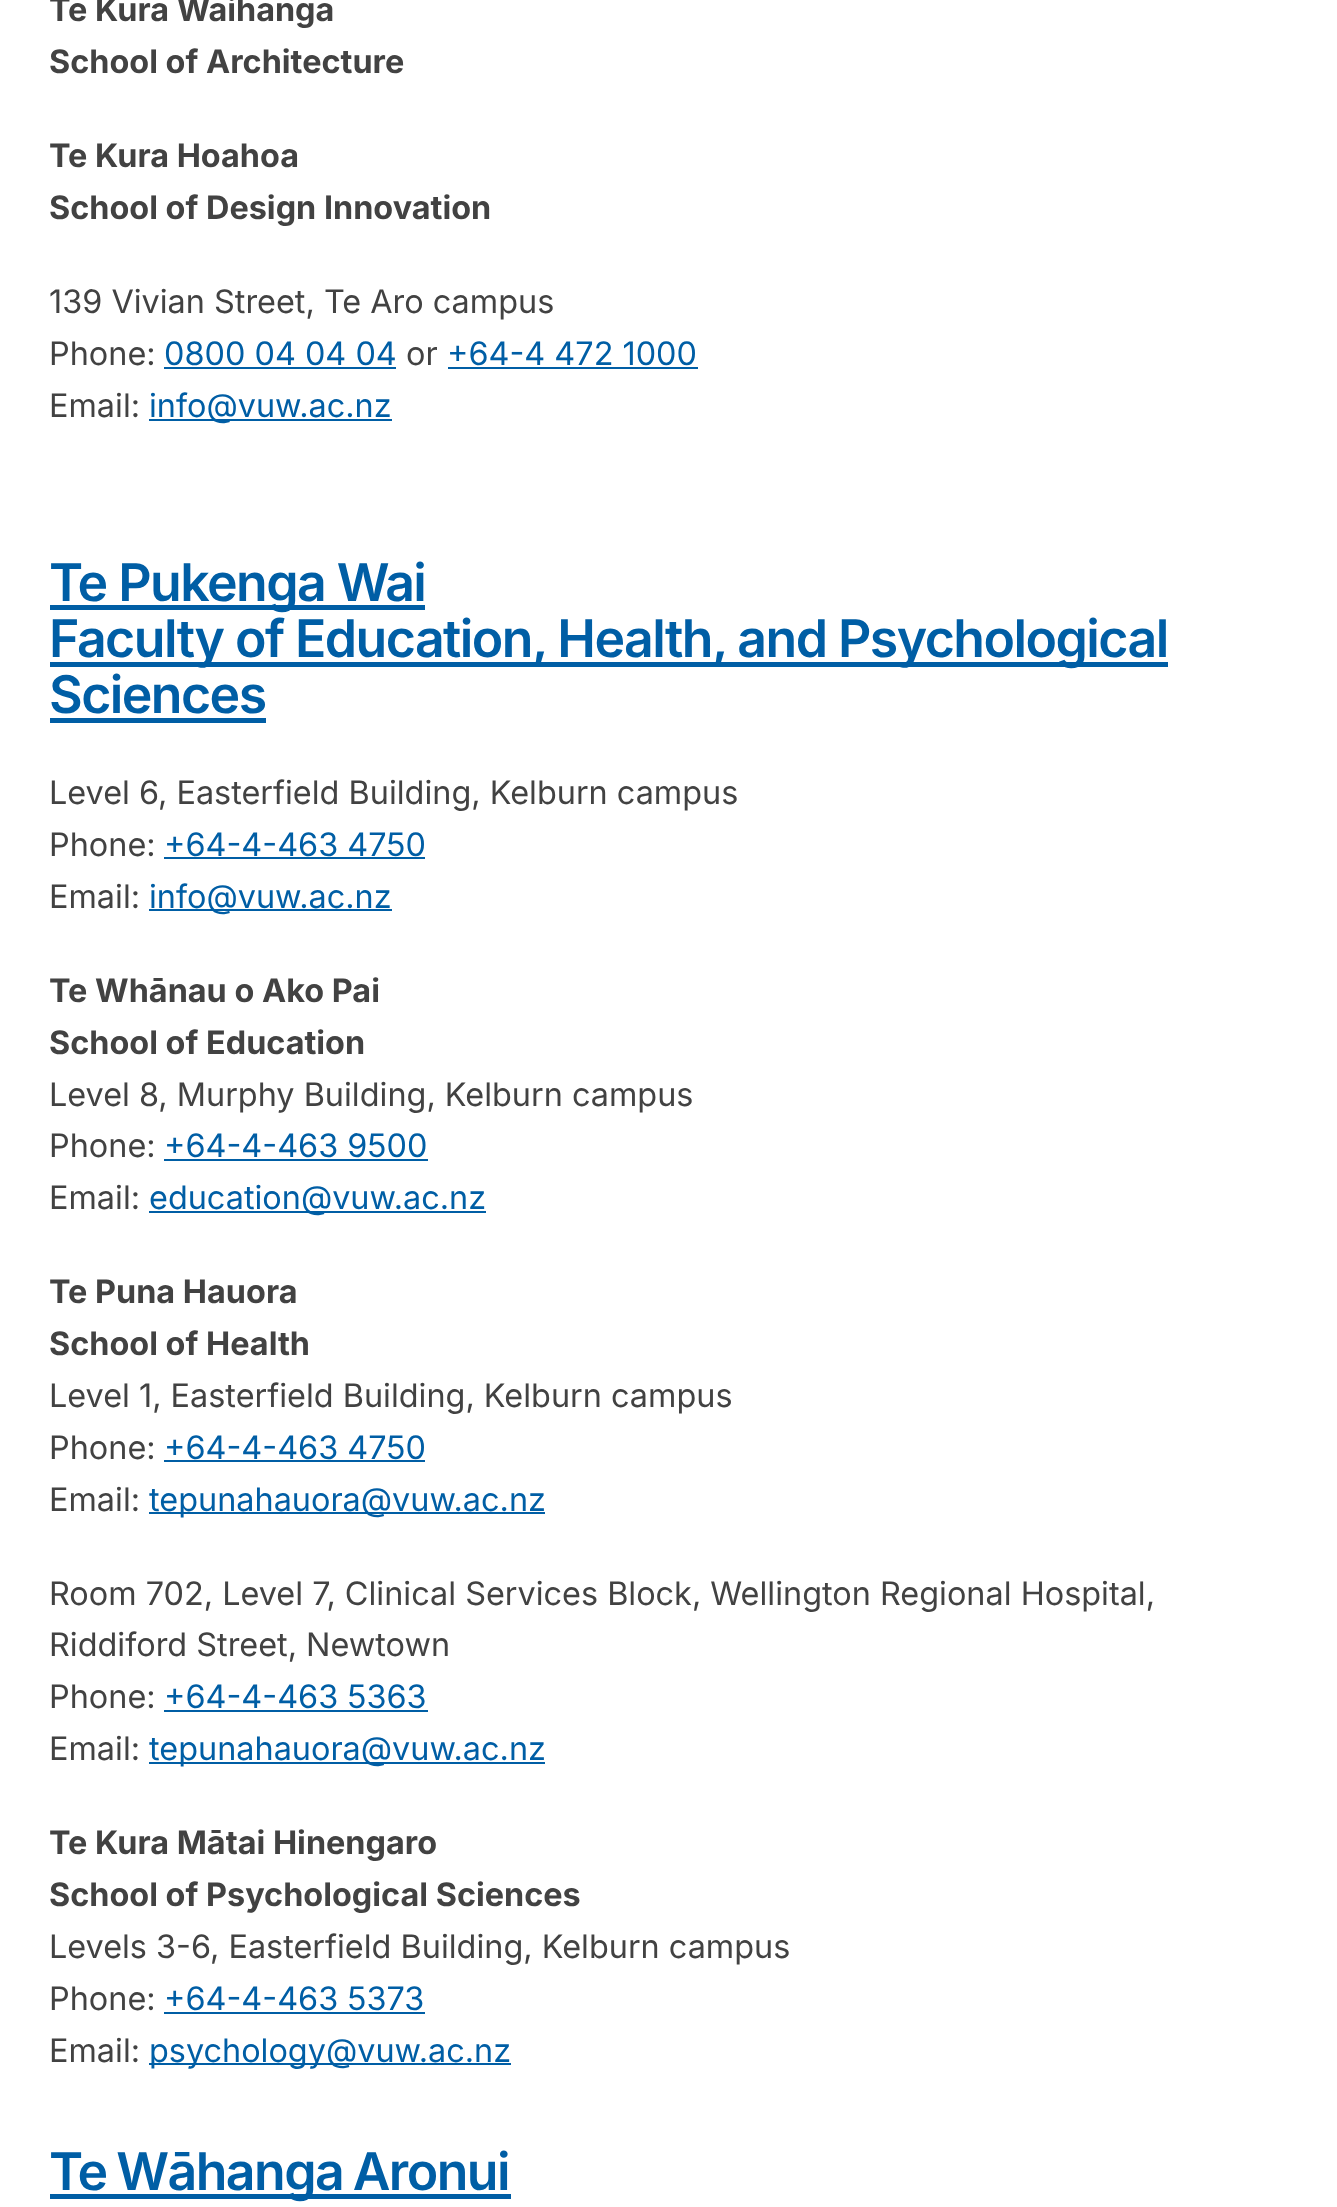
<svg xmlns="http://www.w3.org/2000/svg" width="1337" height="2207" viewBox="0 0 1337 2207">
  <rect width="100%" height="100%" fill="rgb(255,255,255)"/>
  <g font-family="Inter" font-size="32.4" font-weight="bold" fill="rgb(66,66,66)">
    <text>
      <tspan x="49" y="21">Te Kura Waihanga</tspan>
      <tspan x="49" y="73">School of Architecture</tspan>
    </text>
    <text>
      <tspan x="49" y="167">Te Kura Hoahoa</tspan>
      <tspan x="49" y="219">School of Design Innovation</tspan>
    </text>
  </g>
  <g font-family="Inter" font-size="32.4" fill="rgb(66,66,66)">
    <text>
      <tspan x="49" y="313">139 Vivian Street, Te Aro campus</tspan>
      <tspan x="49" y="365">Phone:</tspan>
    </text>
  </g>
  <text x="164" y="365" font-family="Inter" font-size="32.4" fill="rgb(0,94,165)">0800 04 04 04</text>
  <rect x="164" y="367" width="232" height="2" fill="rgb(0,94,165)"/>
  <text x="406" y="365" font-family="Inter" font-size="32.4" fill="rgb(66,66,66)">or</text>
  <text x="447" y="365" font-family="Inter" font-size="32.4" fill="rgb(0,94,165)">+64-4 472 1000</text>
  <rect x="448" y="367" width="250" height="2" fill="rgb(0,94,165)"/>
  <text x="49" y="417" font-family="Inter" font-size="32.4" fill="rgb(66,66,66)">Email:</text>
  <rect x="149" y="419" width="243" height="2" fill="rgb(0,94,165)"/>
  <text x="149" y="417" font-family="Inter" font-size="32.4" fill="rgb(0,94,165)">info@vuw.ac.nz</text>
  <rect x="50" y="605" width="375" height="5" fill="rgb(0,94,165)"/>
  <text x="49" y="601" font-family="Inter" font-size="51.8" font-weight="600" letter-spacing="-1.55" fill="rgb(0,94,165)">Te Pukenga Wai</text>
  <rect x="50" y="662" width="1118" height="5" fill="rgb(0,94,165)"/>
  <g font-family="Inter" font-size="51.8" font-weight="600" letter-spacing="-1.55" fill="rgb(0,94,165)">
    <text>
      <tspan x="49" y="657">Faculty of Education, Health, and Psychological</tspan>
      <tspan x="49" y="713">Sciences</tspan>
    </text>
  </g>
  <rect x="50" y="718" width="216" height="5" fill="rgb(0,94,165)"/>
  <g font-family="Inter" font-size="32.4" fill="rgb(66,66,66)">
    <text>
      <tspan x="49" y="804">Level 6, Easterfield Building, Kelburn campus</tspan>
      <tspan x="49" y="856">Phone:</tspan>
    </text>
  </g>
  <text x="164" y="856" font-family="Inter" font-size="32.4" fill="rgb(0,94,165)">+64-4-463 4750</text>
  <rect x="164" y="857" width="261" height="2" fill="rgb(0,94,165)"/>
  <text x="49" y="908" font-family="Inter" font-size="32.4" fill="rgb(66,66,66)">Email:</text>
  <rect x="149" y="909" width="243" height="2" fill="rgb(0,94,165)"/>
  <text x="149" y="908" font-family="Inter" font-size="32.4" fill="rgb(0,94,165)">info@vuw.ac.nz</text>
  <g font-family="Inter" font-size="32.4" font-weight="bold" fill="rgb(66,66,66)">
    <text>
      <tspan x="49" y="1002">Te Whānau o Ako Pai</tspan>
      <tspan x="49" y="1054">School of Education</tspan>
    </text>
  </g>
  <g font-family="Inter" font-size="32.4" fill="rgb(66,66,66)">
    <text>
      <tspan x="49" y="1106">Level 8, Murphy Building, Kelburn campus</tspan>
      <tspan x="49" y="1157">Phone:</tspan>
    </text>
  </g>
  <text x="164" y="1157" font-family="Inter" font-size="32.4" fill="rgb(0,94,165)">+64-4-463 9500</text>
  <rect x="164" y="1159" width="264" height="2" fill="rgb(0,94,165)"/>
  <text x="49" y="1209" font-family="Inter" font-size="32.4" fill="rgb(66,66,66)">Email:</text>
  <rect x="149" y="1211" width="337" height="2" fill="rgb(0,94,165)"/>
  <text x="149" y="1209" font-family="Inter" font-size="32.4" fill="rgb(0,94,165)">education@vuw.ac.nz</text>
  <g font-family="Inter" font-size="32.4" font-weight="bold" fill="rgb(66,66,66)">
    <text>
      <tspan x="49" y="1303">Te Puna Hauora</tspan>
      <tspan x="49" y="1355">School of Health</tspan>
    </text>
  </g>
  <g font-family="Inter" font-size="32.4" fill="rgb(66,66,66)">
    <text>
      <tspan x="49" y="1407">Level 1, Easterfield Building, Kelburn campus</tspan>
      <tspan x="49" y="1459">Phone:</tspan>
    </text>
  </g>
  <text x="164" y="1459" font-family="Inter" font-size="32.4" fill="rgb(0,94,165)">+64-4-463 4750</text>
  <rect x="164" y="1460" width="261" height="2" fill="rgb(0,94,165)"/>
  <text x="49" y="1511" font-family="Inter" font-size="32.4" fill="rgb(66,66,66)">Email:</text>
  <rect x="149" y="1512" width="396" height="2" fill="rgb(0,94,165)"/>
  <text x="149" y="1511" font-family="Inter" font-size="32.4" fill="rgb(0,94,165)">tepunahauora@vuw.ac.nz</text>
  <g font-family="Inter" font-size="32.4" fill="rgb(66,66,66)">
    <text>
      <tspan x="49" y="1605">Room 702, Level 7, Clinical Services Block, Wellington Regional Hospital,</tspan>
      <tspan x="49" y="1656">Riddiford Street, Newtown</tspan>
      <tspan x="49" y="1708">Phone:</tspan>
    </text>
  </g>
  <text x="164" y="1708" font-family="Inter" font-size="32.4" fill="rgb(0,94,165)">+64-4-463 5363</text>
  <rect x="164" y="1710" width="264" height="2" fill="rgb(0,94,165)"/>
  <text x="49" y="1760" font-family="Inter" font-size="32.4" fill="rgb(66,66,66)">Email:</text>
  <rect x="149" y="1762" width="396" height="2" fill="rgb(0,94,165)"/>
  <text x="149" y="1760" font-family="Inter" font-size="32.4" fill="rgb(0,94,165)">tepunahauora@vuw.ac.nz</text>
  <g font-family="Inter" font-size="32.4" font-weight="bold" fill="rgb(66,66,66)">
    <text>
      <tspan x="49" y="1854">Te Kura Mātai Hinengaro</tspan>
      <tspan x="49" y="1906">School of Psychological Sciences</tspan>
    </text>
  </g>
  <g font-family="Inter" font-size="32.4" fill="rgb(66,66,66)">
    <text>
      <tspan x="49" y="1958">Levels 3-6, Easterfield Building, Kelburn campus</tspan>
      <tspan x="49" y="2010">Phone:</tspan>
    </text>
  </g>
  <text x="164" y="2010" font-family="Inter" font-size="32.4" fill="rgb(0,94,165)">+64-4-463 5373</text>
  <rect x="164" y="2012" width="261" height="2" fill="rgb(0,94,165)"/>
  <text x="49" y="2062" font-family="Inter" font-size="32.4" fill="rgb(66,66,66)">Email:</text>
  <rect x="149" y="2063" width="362" height="2" fill="rgb(0,94,165)"/>
  <text x="149" y="2062" font-family="Inter" font-size="32.4" fill="rgb(0,94,165)">psychology@vuw.ac.nz</text>
  <rect x="50" y="2194" width="461" height="5" fill="rgb(0,94,165)"/>
  <text x="49" y="2190" word-spacing="-2" font-family="Inter" font-size="51.8" font-weight="600" letter-spacing="-1.55" fill="rgb(0,94,165)">Te Wāhanga Aronui</text>
</svg>
